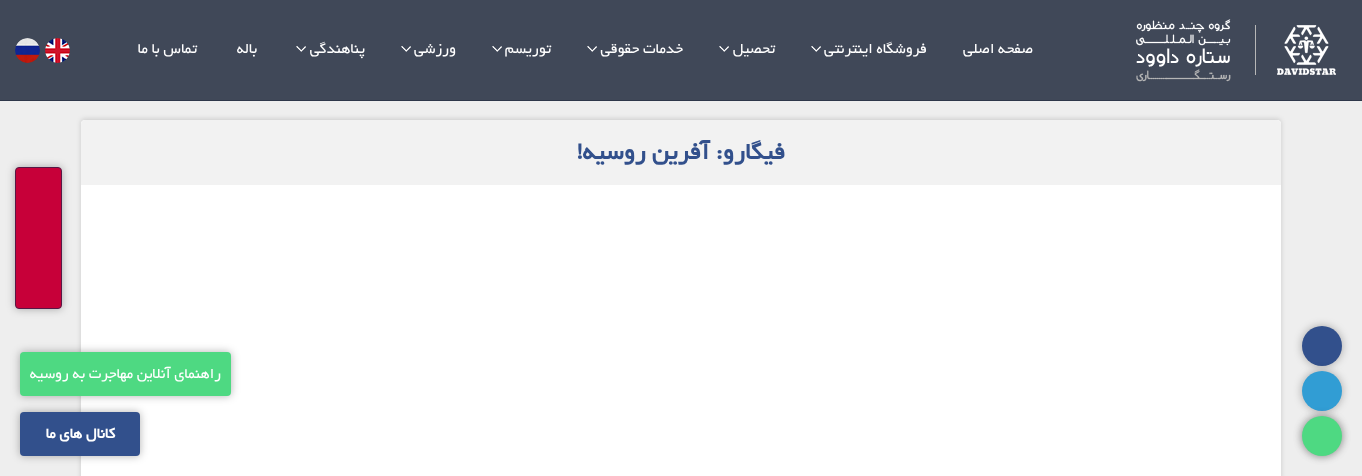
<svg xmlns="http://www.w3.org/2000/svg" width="1362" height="476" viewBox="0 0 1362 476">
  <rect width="100%" height="100%" fill="rgb(238,238,238)"/>
  <rect x="0" y="0" width="1362" height="100" fill="rgb(64,72,88)"/>
  <rect x="0" y="100" width="1362" height="1" fill="rgb(46,55,73)"/>
  <image x="1136" y="19" width="200" height="63" href="pic1.png"/>
  <g font-family="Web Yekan" font-size="16" direction="rtl" fill="rgb(255,255,255)">
    <text x="1033" y="53">صفحه اصلی</text>
    <text x="927" y="53">فروشگاه اینترنتی</text>
  </g>
  <image x="811" y="46" width="10" height="6" href="pic2.png"/>
  <text x="775" y="53" font-family="Web Yekan" font-size="16" direction="rtl" fill="rgb(255,255,255)">تحصیل</text>
  <image x="719" y="46" width="10" height="6" href="pic2.png"/>
  <text x="683" y="53" font-family="Web Yekan" font-size="16" direction="rtl" fill="rgb(255,255,255)">خدمات حقوقی</text>
  <image x="587" y="46" width="10" height="6" href="pic2.png"/>
  <text x="551" y="53" font-family="Web Yekan" font-size="16" direction="rtl" fill="rgb(255,255,255)">توریسم</text>
  <image x="492" y="46" width="10" height="6" href="pic2.png"/>
  <text x="456" y="53" font-family="Web Yekan" font-size="16" direction="rtl" fill="rgb(255,255,255)">ورزشی</text>
  <image x="401" y="46" width="10" height="6" href="pic2.png"/>
  <text x="365" y="53" font-family="Web Yekan" font-size="16" direction="rtl" fill="rgb(255,255,255)">پناهندگی</text>
  <image x="296" y="46" width="10" height="6" href="pic2.png"/>
  <g font-family="Web Yekan" font-size="16" direction="rtl" fill="rgb(255,255,255)">
    <text x="257" y="53">باله</text>
    <text x="197" y="53">تماس با ما</text>
  </g>
  <image x="45" y="38" width="25" height="25" href="pic3.png"/>
  <image x="15" y="38" width="25" height="25" href="pic4.png"/>
  <rect x="81" y="119" width="1200" height="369" rx="4" fill="rgba(0,0,0,0.15)" filter="blur(2.5px)"/>
  <rect x="81" y="120" width="1200" height="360" rx="4" fill="rgb(255,255,255)"/>
  <path d="M85 120H1277C1279 120 1281 122 1281 124V185H81V124C81 122 83 120 85 120Z" fill="rgb(242,242,242)"/>
  <text x="785" y="159" font-family="Web Yekan" font-size="26" font-weight="bold" direction="rtl" fill="rgb(50,80,140)">فیگارو: آفرین روسیه!</text>
  <rect x="15" y="167" width="47" height="142" rx="4" fill="rgba(0,0,0,0.3)" filter="blur(4px)"/>
  <rect x="15.5" y="167.5" width="46" height="141" rx="3.5" fill="rgb(199,0,57)" stroke="rgb(87,24,69)"/>
  <text x="164" y="301" transform="rotate(-90 164 301)" font-family="Web Yekan" font-size="18" direction="rtl" fill="rgb(255,255,255)">بخش ویژه توریسم</text>
  <rect x="1302" y="326" width="40" height="40" rx="20" fill="rgba(0,0,0,0.3)" filter="blur(4px)"/>
  <circle cx="1322" cy="346" r="20" fill="rgb(50,80,140)"/>
  <rect x="1302" y="371" width="40" height="40" rx="20" fill="rgba(0,0,0,0.3)" filter="blur(4px)"/>
  <rect x="1302" y="416" width="40" height="40" rx="20" fill="rgba(0,0,0,0.2)" filter="blur(4px)"/>
  <circle cx="1322" cy="391" r="20" fill="rgb(49,157,212)"/>
  <rect x="1302" y="416" width="40" height="40" rx="20" fill="rgba(0,0,0,0.3)" filter="blur(4px)"/>
  <circle cx="1322" cy="436" r="20" fill="rgb(78,217,130)"/>
  <rect x="20" y="352" width="211" height="44" rx="4" fill="rgba(0,0,0,0.3)" filter="blur(4px)"/>
  <rect x="20" y="352" width="211" height="44" rx="4" fill="rgb(78,217,130)"/>
  <text x="221" y="378" font-family="Web Yekan" font-size="16" direction="rtl" fill="rgb(255,255,255)">راهنمای آنلاین مهاجرت به روسیه</text>
  <rect x="20" y="412" width="120" height="44" rx="4" fill="rgba(0,0,0,0.3)" filter="blur(4px)"/>
  <rect x="20" y="412" width="120" height="44" rx="4" fill="rgb(50,80,140)"/>
  <text x="115" y="438" font-family="Web Yekan" font-size="16" font-weight="bold" direction="rtl" fill="rgb(255,255,255)">کانال های ما</text>
</svg>
